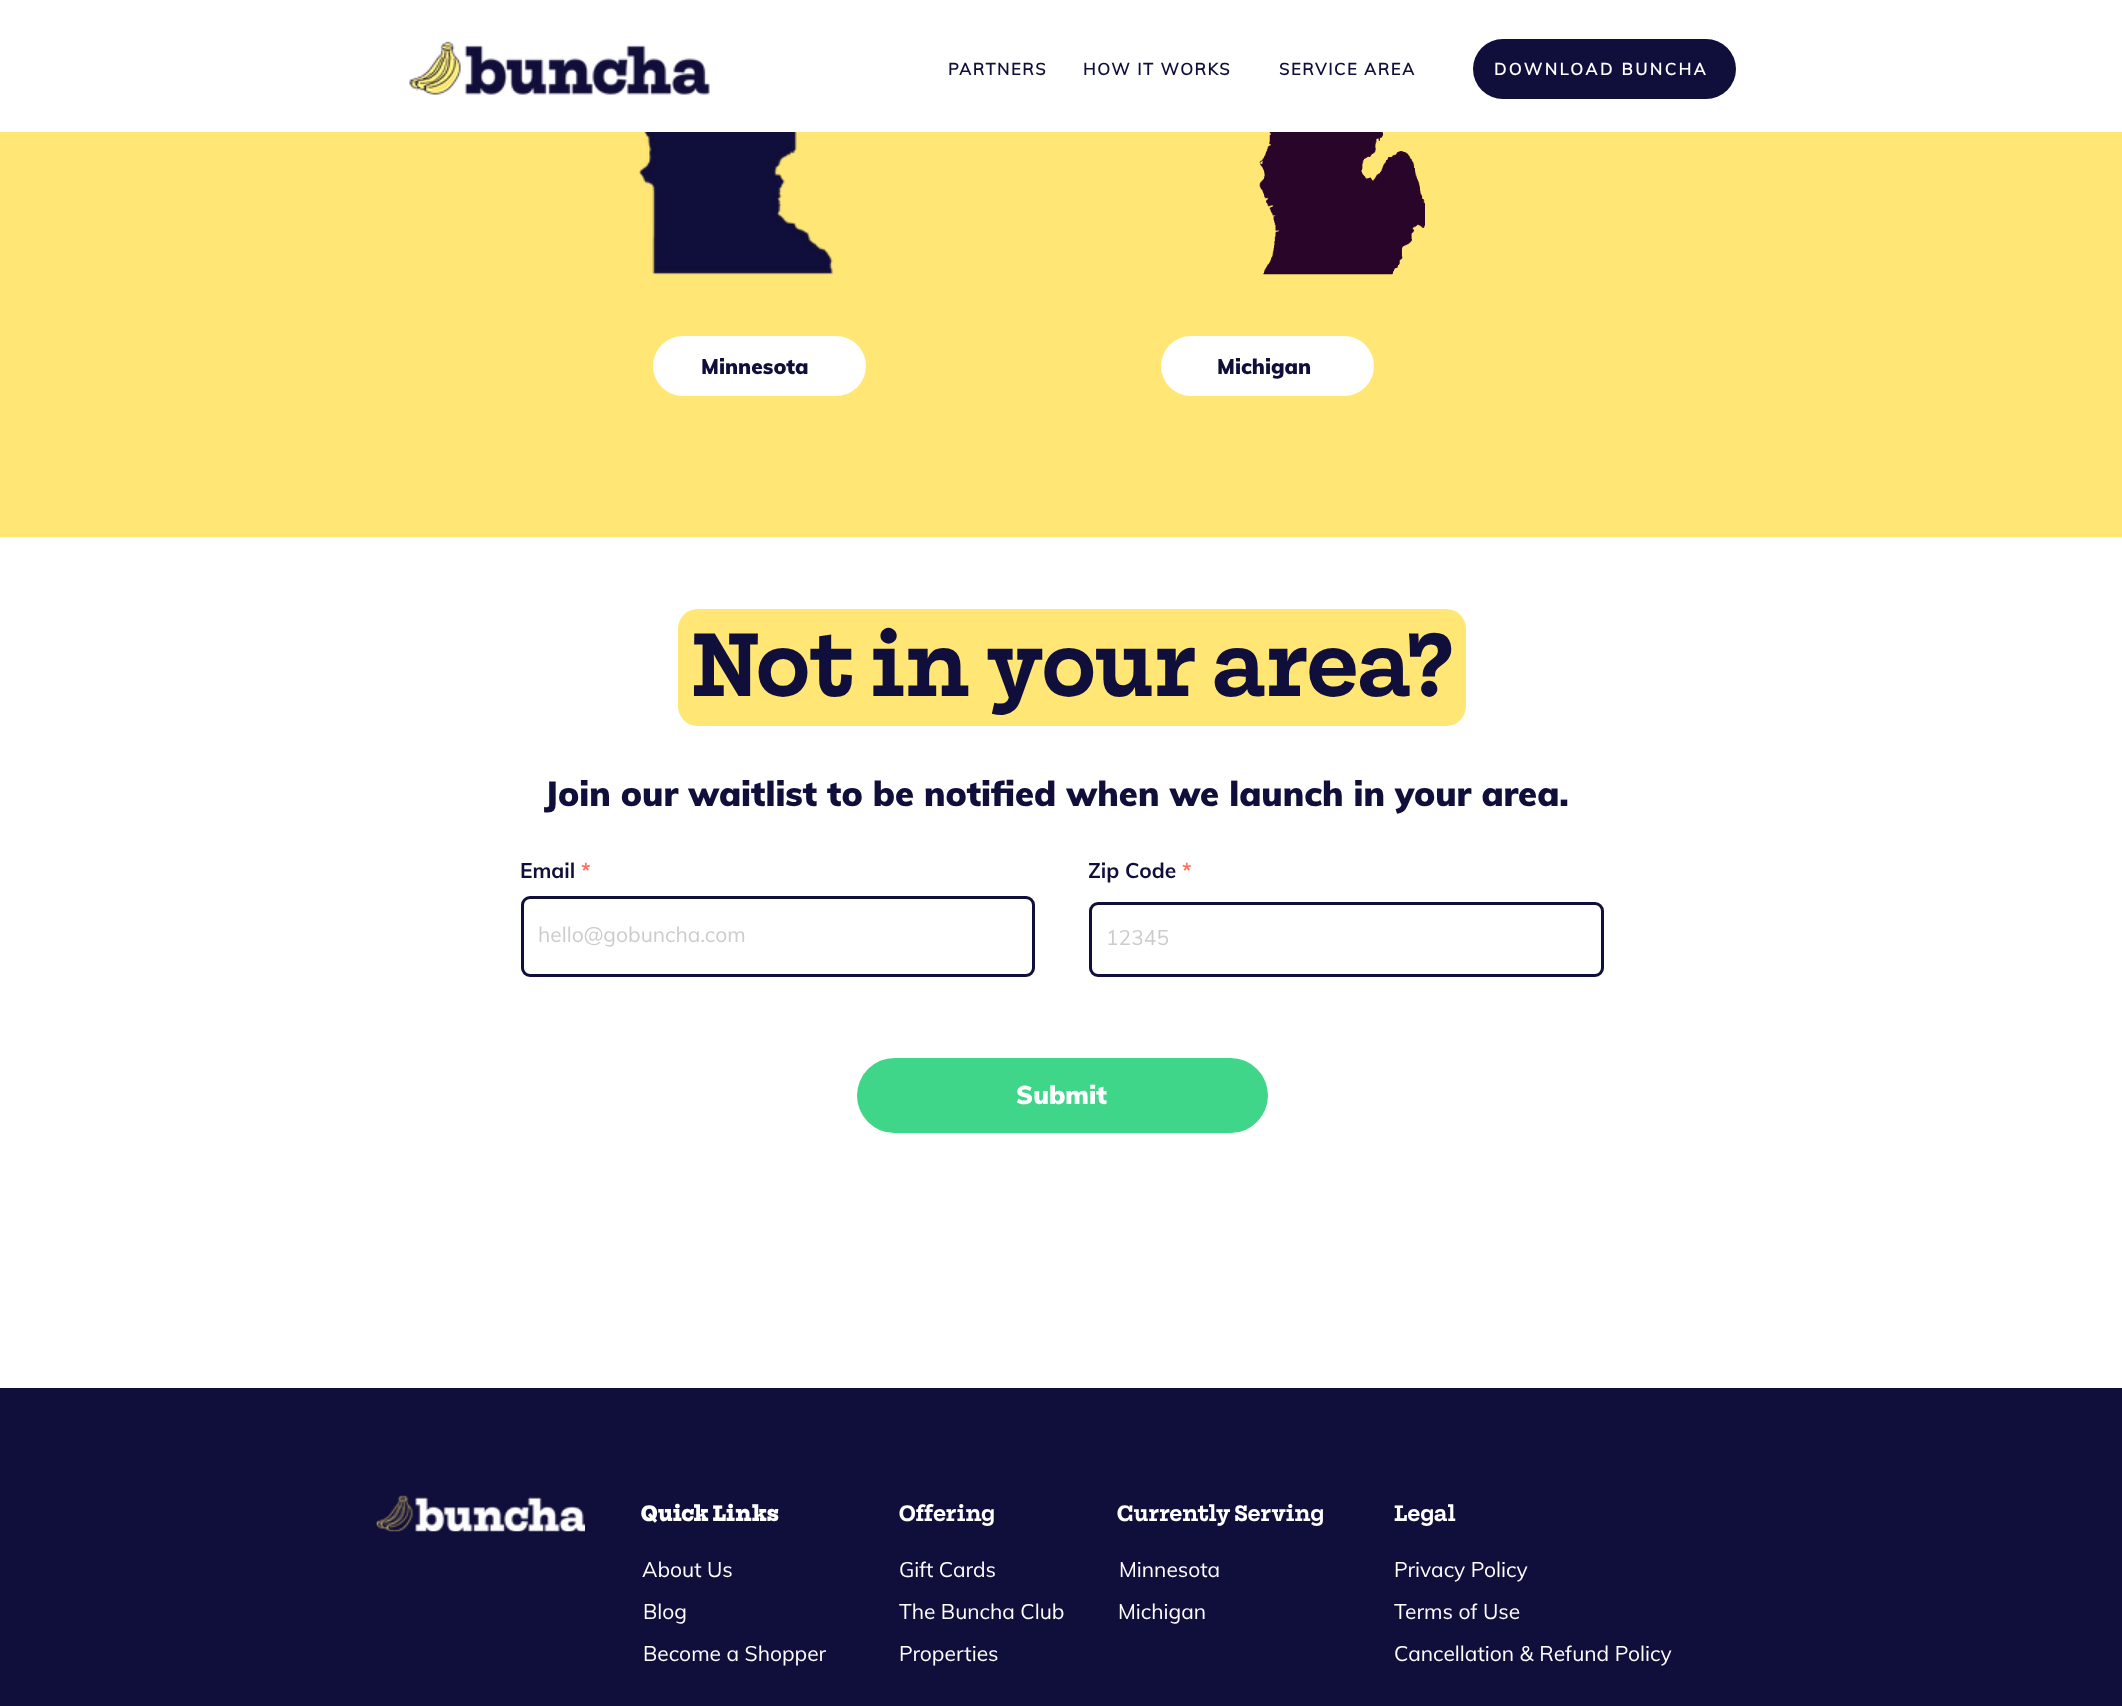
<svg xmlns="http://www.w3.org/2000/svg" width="2122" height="1706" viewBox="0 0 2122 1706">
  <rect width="100%" height="100%" fill="rgb(255,255,255)"/>
  <image x="409" y="41" width="301" height="54" href="pic1.png"/>
  <g font-family="'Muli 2'" font-size="16.5" font-weight="bold" letter-spacing="1.6" fill="rgb(16,14,58)">
    <text x="948" y="75">PARTNERS</text>
    <text x="1083" y="75">HOW IT WORKS</text>
    <text x="1279" y="75">SERVICE AREA</text>
  </g>
  <rect x="1473" y="39" width="263" height="60" rx="30" fill="rgb(16,14,58)"/>
  <text x="1494" y="75" font-family="'Muli 2'" font-size="16.5" font-weight="bold" letter-spacing="2.5" fill="rgb(255,255,255)">DOWNLOAD BUNCHA</text>
  <rect x="0" y="132" width="2122" height="405" fill="rgb(255,230,117)"/>
  <image x="639" y="132" width="194" height="143" href="pic2.png"/>
  <image x="1259" y="132" width="166" height="143" href="pic3.png"/>
  <rect x="653" y="336" width="213" height="60" rx="30" fill="rgb(255,255,255)"/>
  <text x="701" y="374" font-family="Muli" font-size="21" font-weight="900" fill="rgb(16,14,58)">Minnesota</text>
  <rect x="1161" y="336" width="213" height="60" rx="30" fill="rgb(255,255,255)"/>
  <text x="1217" y="374" font-family="Muli" font-size="21" font-weight="900" fill="rgb(16,14,58)">Michigan</text>
  <rect x="678" y="609" width="788" height="117" rx="20" fill="rgb(255,230,117)"/>
  <text x="691" y="696" font-family="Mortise" font-size="96" font-weight="bold" fill="rgb(16,14,58)">Not in your area?</text>
  <text x="544" y="806" font-family="Muli" font-size="34.5" font-weight="900" fill="rgb(16,14,58)">Join our waitlist to be notified when we launch in your area.</text>
  <text x="520" y="878" font-family="Muli" font-size="21" font-weight="bold" fill="rgb(16,14,58)">Email</text>
  <text x="581" y="878" font-family="Muli" font-size="21" font-weight="bold" fill="rgb(255,111,89)">*</text>
  <rect x="522.5" y="897.5" width="511" height="78" rx="7.5" fill="none" stroke="rgb(16,14,58)" stroke-width="3"/>
  <text x="538" y="942" font-family="Muli" font-size="21" fill="rgb(204,204,204)">hello@gobuncha.com</text>
  <text x="1088" y="878" font-family="Muli" font-size="21" font-weight="bold" fill="rgb(16,14,58)">Zip Code</text>
  <text x="1182" y="878" font-family="Muli" font-size="21" font-weight="bold" fill="rgb(255,111,89)">*</text>
  <rect x="1090.5" y="903.5" width="512" height="72" rx="7.5" fill="none" stroke="rgb(16,14,58)" stroke-width="3"/>
  <text x="1106" y="945" font-family="Muli" font-size="21" fill="rgb(204,204,204)">12345</text>
  <rect x="857" y="1058" width="411" height="75" rx="37.5" fill="rgb(64,214,138)"/>
  <text x="1016" y="1104" font-family="Muli" font-size="25.5" font-weight="900" fill="rgb(255,255,255)">Submit</text>
  <rect x="0" y="1388" width="2122" height="318" fill="rgb(16,14,58)"/>
  <image x="376" y="1495" width="209" height="37" href="pic4.png"/>
  <text x="641" y="1521" font-family="'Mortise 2'" font-size="24" font-weight="bold" fill="rgb(255,255,255)">Quick Links</text>
  <g font-family="Mortise" font-size="24" font-weight="bold" fill="rgb(255,255,255)">
    <text x="899" y="1521">Offering</text>
    <text x="1117" y="1521">Currently Serving</text>
    <text x="1394" y="1521">Legal</text>
  </g>
  <g font-family="Muli" font-size="21" fill="rgb(255,255,255)">
    <text x="642" y="1577">About Us</text>
    <text x="899" y="1577">Gift Cards</text>
    <text x="1119" y="1577">Minnesota</text>
    <text x="1394" y="1577">Privacy Policy</text>
    <text x="643" y="1619">Blog</text>
    <text x="899" y="1619">The Buncha Club</text>
    <text x="1118" y="1619">Michigan</text>
    <text x="1394" y="1619">Terms of Use</text>
    <text x="643" y="1661">Become a Shopper</text>
    <text x="899" y="1661">Properties</text>
    <text x="1394" y="1661">Cancellation &amp; Refund Policy</text>
  </g>
</svg>
